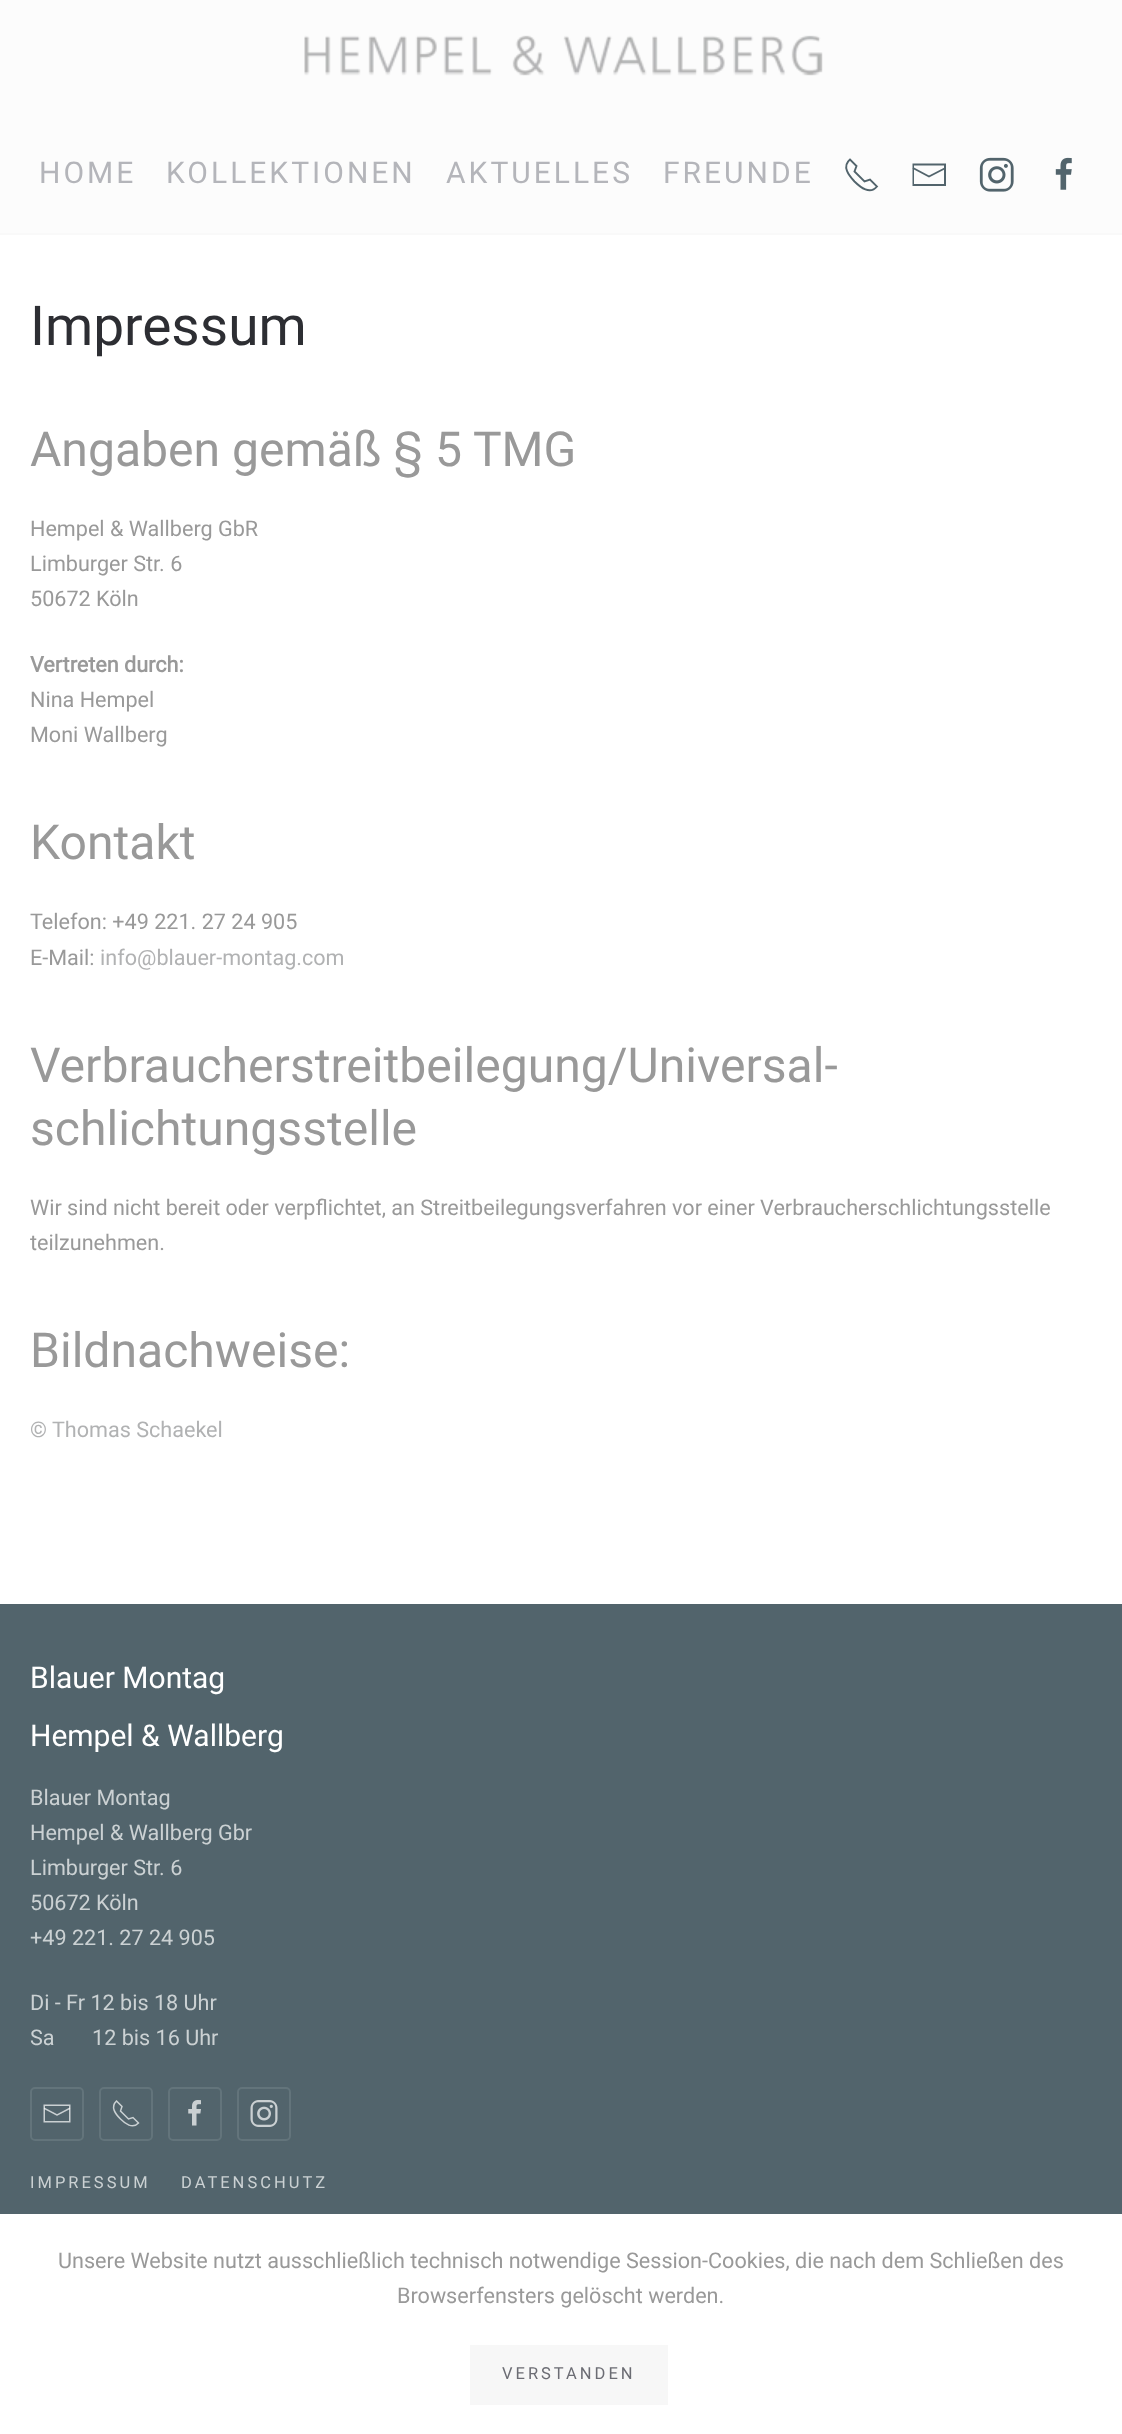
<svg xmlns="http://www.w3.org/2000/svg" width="1122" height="2434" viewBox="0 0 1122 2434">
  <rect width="100%" height="100%" fill="rgb(255,255,255)"/>
  <rect x="0" y="0" width="1122" height="233" fill="rgb(252,252,252)"/>
  <image x="304" y="35" width="519" height="41" href="pic1.png"/>
  <rect x="0" y="233" width="1122" height="2" fill="rgb(249,249,249)"/>
  <g font-family="Roboto" font-size="30" letter-spacing="3" fill="rgb(180,181,186)">
    <text x="39" y="183">HOME</text>
    <text x="166" y="183">KOLLEKTIONEN</text>
    <text x="446" y="183">AKTUELLES</text>
    <text x="663" y="183">FREUNDE</text>
  </g>
  <path d="M854.5 181.5C860.5 187.5 870 195 877 186.5L870 179.5L864.5 181.5L854.5 171.5L856.5 166L850 159.5C841.5 166.5 849 175.5 854.5 181.5" fill="none" stroke="rgb(82,100,108)" stroke-width="1.9"/>
  <path d="M913 168L929 176.5L945.5 168" fill="none" stroke="rgb(82,100,108)" stroke-width="1.9"/>
  <path d="M912.5 163.5V186H946V163.5ZM944 184H914V165.5H944Z" fill="rgb(82,100,108)"/>
  <image x="979" y="157" width="35" height="35" href="pic2.png"/>
  <image x="1055" y="157" width="17" height="33" href="pic3.png"/>
  <text x="30" y="345" font-family="Roboto" font-size="55" fill="rgb(45,46,51)">Impressum</text>
  <text x="30" y="466" font-family="Roboto" font-size="48.1" fill="rgb(153,153,153)">Angaben gemäß § 5 TMG</text>
  <g font-family="Roboto" font-size="21.6" fill="rgb(153,153,153)">
    <text>
      <tspan x="30" y="536">Hempel &amp; Wallberg GbR</tspan>
      <tspan x="30" y="571">Limburger Str. 6</tspan>
      <tspan x="30" y="606">50672 Köln</tspan>
    </text>
  </g>
  <text x="30" y="672" font-family="Roboto" font-size="21.6" font-weight="bold" fill="rgb(153,153,153)">Vertreten durch:</text>
  <g font-family="Roboto" font-size="21.6" fill="rgb(153,153,153)">
    <text>
      <tspan x="30" y="707">Nina Hempel</tspan>
      <tspan x="30" y="742">Moni Wallberg</tspan>
    </text>
  </g>
  <text x="30" y="859" font-family="Roboto" font-size="48.1" fill="rgb(153,153,153)">Kontakt</text>
  <g font-family="Roboto" font-size="21.6" fill="rgb(153,153,153)">
    <text>
      <tspan x="30" y="929">Telefon: +49 221. 27 24 905</tspan>
      <tspan x="30" y="965">E-Mail:</tspan>
    </text>
  </g>
  <text x="100" y="965" font-family="Roboto" font-size="21.6" fill="rgb(177,178,179)">info@blauer-montag.com</text>
  <g font-family="Roboto" font-size="48.1" fill="rgb(153,153,153)">
    <text>
      <tspan x="30" y="1082">Verbraucherstreitbeilegung/Universal-</tspan>
      <tspan x="30" y="1145">schlichtungsstelle</tspan>
    </text>
  </g>
  <g font-family="Roboto" font-size="21.6" fill="rgb(153,153,153)">
    <text>
      <tspan x="30" y="1215">Wir sind nicht bereit oder verpflichtet, an Streitbeilegungsverfahren vor einer Verbraucherschlichtungsstelle</tspan>
      <tspan x="30" y="1250">teilzunehmen.</tspan>
    </text>
  </g>
  <text x="30" y="1367" font-family="Roboto" font-size="48.1" fill="rgb(153,153,153)">Bildnachweise:</text>
  <text x="30" y="1437" font-family="Roboto" font-size="21.6" fill="rgb(177,178,179)">© Thomas Schaekel</text>
  <rect x="0" y="1604" width="1122" height="610" fill="rgb(82,100,108)"/>
  <g font-family="Roboto" font-size="30" fill="rgb(255,255,255)">
    <text>
      <tspan x="30" y="1688">Blauer Montag</tspan>
      <tspan x="30" y="1746">Hempel &amp; Wallberg</tspan>
    </text>
  </g>
  <g font-family="Roboto" font-size="21.6" fill="rgb(203,209,211)">
    <text>
      <tspan x="30" y="1805">Blauer Montag</tspan>
      <tspan x="30" y="1840">Hempel &amp; Wallberg Gbr</tspan>
      <tspan x="30" y="1875">Limburger Str. 6</tspan>
      <tspan x="30" y="1910">50672 Köln</tspan>
      <tspan x="30" y="1945">+49 221. 27 24 905</tspan>
    </text>
    <text xml:space="preserve"><tspan x="30" y="2010">Di - Fr 12 bis 18 Uhr</tspan><tspan x="30" y="2045">Sa       12 bis 16 Uhr</tspan></text>
  </g>
  <rect x="31" y="2088" width="52" height="52" rx="4" fill="none" stroke="rgb(99,116,123)" stroke-width="2"/>
  <image x="43" y="2104" width="28" height="19" href="pic4.png"/>
  <rect x="100" y="2088" width="52" height="52" rx="4" fill="none" stroke="rgb(99,116,123)" stroke-width="2"/>
  <path d="M120.5 2119C125 2123.5 132.5 2129.5 138.5 2123L133 2117.5L128.5 2119L120.5 2111L122 2106.5L116.5 2101C110 2107 115.5 2114 120.5 2119" fill="none" stroke="rgb(203,209,211)" stroke-width="1.5"/>
  <rect x="169" y="2088" width="52" height="52" rx="4" fill="none" stroke="rgb(99,116,123)" stroke-width="2"/>
  <image x="188" y="2100" width="13" height="26" href="pic5.png"/>
  <rect x="238" y="2088" width="52" height="52" rx="4" fill="none" stroke="rgb(99,116,123)" stroke-width="2"/>
  <image x="250" y="2100" width="28" height="27" href="pic6.png"/>
  <g font-family="Roboto" font-size="16.5" letter-spacing="3" fill="rgb(203,209,211)">
    <text x="30" y="2188">IMPRESSUM</text>
    <text x="181" y="2188">DATENSCHUTZ</text>
  </g>
  <g font-family="Roboto" font-size="21.6" fill="rgb(153,153,153)">
    <text x="58" y="2268">Unsere Website nutzt ausschließlich technisch notwendige Session-Cookies, die nach dem Schließen des</text>
    <text x="397" y="2303">Browserfensters gelöscht werden.</text>
  </g>
  <rect x="470" y="2345" width="198" height="60" fill="rgb(247,247,247)"/>
  <text x="502" y="2379" font-family="Roboto" font-size="16.5" letter-spacing="3" fill="rgb(108,109,116)">VERSTANDEN</text>
</svg>
